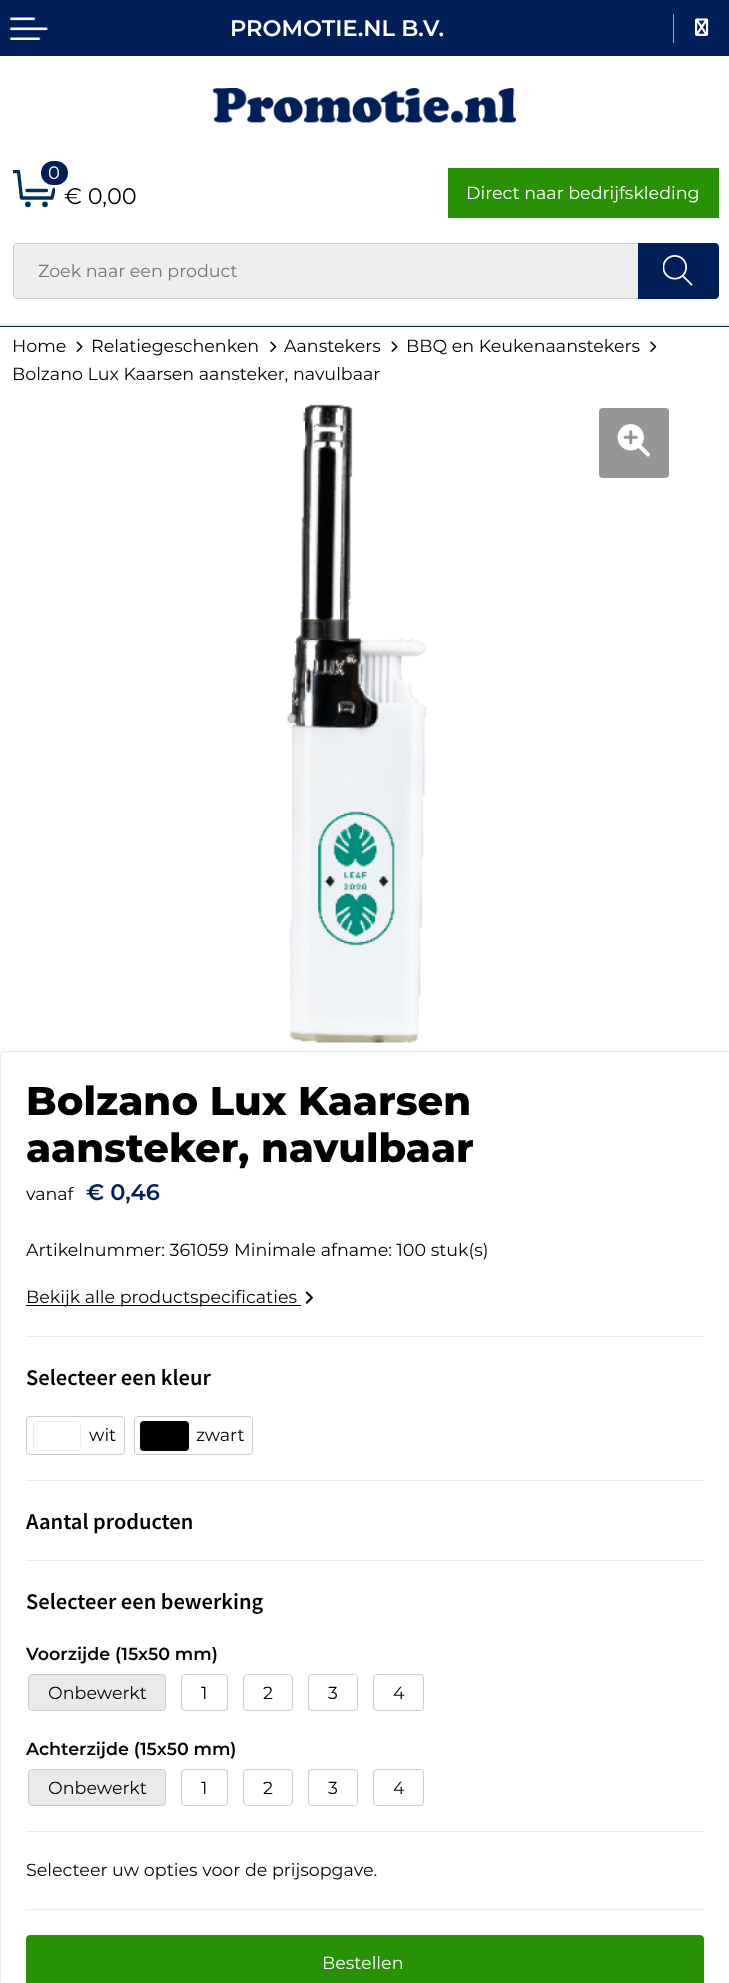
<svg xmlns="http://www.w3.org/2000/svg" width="729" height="1983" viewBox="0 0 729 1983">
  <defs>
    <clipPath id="clip1"><rect x="13" y="170" width="42" height="38"/></clipPath>
  </defs>
  <rect width="100%" height="100%" fill="rgb(255,255,255)"/>
  <rect x="0" y="0" width="729" height="56" fill="rgb(0,30,88)"/>
  <image x="9" y="17" width="39" height="23" href="pic1.png"/>
  <text x="230" y="36" font-family="Montserrat" font-size="22.5" font-weight="600" fill="rgb(255,255,255)">PROMOTIE.NL B.V.</text>
  <rect x="673" y="14" width="1" height="29" fill="rgb(153,165,188)"/>
  <image x="695" y="18" width="14" height="18" href="pic2.png"/>
  <image x="213" y="87" width="303" height="36" href="pic3.png"/>
  <g clip-path="url(#clip1)">
    <path d="M14 171.5H18.5L21.5 198H52L54 189.5" fill="none" stroke="rgb(1,48,90)" stroke-width="3.3" stroke-linecap="round" stroke-linejoin="round"/>
  </g>
  <rect x="41" y="161" width="27" height="24" rx="12" fill="rgb(0,30,88)"/>
  <text x="48" y="179" font-family="Montserrat" font-size="18" fill="rgb(255,255,255)">0</text>
  <path d="M27 190.5H46.5" fill="none" stroke="rgb(1,48,90)" stroke-width="3.3" stroke-linecap="round"/>
  <circle cx="27.9" cy="204.3" r="2.3" fill="rgb(1,48,90)" stroke="rgb(1,48,90)" stroke-width="1.1"/>
  <circle cx="45" cy="204.3" r="2.3" fill="rgb(1,48,90)" stroke="rgb(1,48,90)" stroke-width="1.1"/>
  <text x="64" y="204" font-family="Montserrat" font-size="22.5" fill="rgb(0,0,0)">€ 0,00</text>
  <rect x="448" y="168" width="271" height="50" fill="rgb(40,145,6)"/>
  <text x="466" y="199" font-family="Montserrat" font-size="17.5" fill="rgb(255,255,255)">Direct naar bedrijfskleding</text>
  <path d="M17 243.5H638.5V298.5H17C15 298.5 13.5 297 13.5 295V247C13.5 245 15 243.5 17 243.5Z" fill="rgb(238,238,238)" stroke="rgb(204,204,204)"/>
  <text x="38" y="277" font-family="Montserrat" font-size="17.5" fill="rgb(117,117,117)">Zoek naar een product</text>
  <path d="M638 243H715C717 243 719 245 719 247V295C719 297 717 299 715 299H638Z" fill="rgb(0,30,88)"/>
  <image x="663" y="255" width="30" height="31" href="pic4.png"/>
  <rect x="0" y="326" width="729" height="1" fill="rgb(0,30,88)"/>
  <rect x="0" y="324" width="729" height="2" fill="rgb(234,234,234)"/>
  <text x="12" y="352" font-family="Montserrat" font-size="17.5" fill="rgb(0,0,0)">Home</text>
  <image x="76" y="341" width="7" height="11" href="pic5.png"/>
  <text x="91" y="352" font-family="Montserrat" font-size="17.5" fill="rgb(0,0,0)">Relatiegeschenken</text>
  <image x="270" y="341" width="7" height="11" href="pic6.png"/>
  <text x="284" y="352" font-family="Montserrat" font-size="17.5" fill="rgb(0,0,0)">Aanstekers</text>
  <image x="391" y="341" width="7" height="11" href="pic5.png"/>
  <text x="406" y="352" font-family="Montserrat" font-size="17.5" fill="rgb(0,0,0)">BBQ en Keukenaanstekers</text>
  <image x="650" y="341" width="7" height="11" href="pic6.png"/>
  <text x="12" y="380" font-family="Montserrat" font-size="17.5" fill="rgb(0,0,0)">Bolzano Lux Kaarsen aansteker, navulbaar</text>
  <image x="287" y="404" width="140" height="639" href="pic7.png"/>
  <rect x="599" y="408" width="70" height="70" rx="4" fill="rgb(150,150,150)"/>
  <image x="617" y="424" width="33" height="33" href="pic8.png"/>
  <rect x="0.5" y="1051.5" width="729" height="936" rx="3.5" fill="none" stroke="rgb(234,234,234)"/>
  <g font-family="Montserrat" font-size="40" font-weight="800" fill="rgb(0,0,0)">
    <text>
      <tspan x="26" y="1115">Bolzano Lux Kaarsen</tspan>
      <tspan x="26" y="1162">aansteker, navulbaar</tspan>
    </text>
  </g>
  <text x="26" y="1200" font-family="Montserrat" font-size="17.5" fill="rgb(0,0,0)">vanaf</text>
  <text x="86" y="1200" font-family="Montserrat" font-size="22.5" font-weight="600" fill="rgb(0,30,88)">€ 0,46</text>
  <rect x="26" y="1336" width="678" height="1" fill="rgb(234,234,234)"/>
  <g font-family="Montserrat" font-size="17.5" fill="rgb(0,0,0)">
    <text x="26" y="1256">Artikelnummer: 361059</text>
    <text x="234" y="1256">Minimale afname: 100 stuk(s)</text>
  </g>
  <rect x="26" y="1305" width="275" height="1" fill="rgb(0,0,0)"/>
  <text x="26" y="1303" font-family="Montserrat" font-size="17.5" fill="rgb(0,0,0)">Bekijk alle productspecificaties</text>
  <image x="305" y="1291" width="8" height="13" href="pic9.png"/>
  <rect x="26" y="1480" width="678" height="1" fill="rgb(234,234,234)"/>
  <text x="26" y="1385" font-family="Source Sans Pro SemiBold" font-size="22.5" font-weight="600" fill="rgb(0,0,0)">Selecteer een kleur</text>
  <rect x="26.5" y="1416.5" width="98" height="38" rx="3.5" fill="none" stroke="rgb(204,204,204)"/>
  <path d="M33 1425C33 1429 32 1447 34 1450V1422ZM37 1421L34 1422H80L77 1421ZM81 1425L80 1422V1450C82 1447 81 1429 81 1425ZM77 1451L80 1450H34C35 1451 36 1451 37 1451Z" fill="rgb(234,234,234)" fill-rule="evenodd"/>
  <text x="89" y="1441" font-family="Montserrat" font-size="17.5" fill="rgb(0,0,0)">wit</text>
  <rect x="134.5" y="1416.5" width="118" height="38" rx="3.5" fill="none" stroke="rgb(204,204,204)"/>
  <rect x="140" y="1421" width="49" height="30" rx="4" fill="rgb(0,0,0)"/>
  <text x="196" y="1441" font-family="Montserrat" font-size="17.5" fill="rgb(0,0,0)">zwart</text>
  <rect x="26" y="1560" width="678" height="1" fill="rgb(234,234,234)"/>
  <g font-family="Source Sans Pro SemiBold" font-size="22.5" font-weight="600" fill="rgb(0,0,0)">
    <text x="26" y="1529">Aantal producten</text>
    <text x="26" y="1609">Selecteer een bewerking</text>
  </g>
  <text x="26" y="1660" font-family="Montserrat" font-size="17.5" font-weight="600" fill="rgb(0,0,0)">Voorzijde (15x50 mm)</text>
  <rect x="28.5" y="1674.5" width="137" height="36" rx="3.5" fill="rgb(234,234,234)" stroke="rgb(204,204,204)"/>
  <text x="48" y="1699" font-family="Montserrat" font-size="17.5" fill="rgb(0,0,0)">Onbewerkt</text>
  <rect x="181.5" y="1674.5" width="46" height="36" rx="3.5" fill="none" stroke="rgb(204,204,204)"/>
  <text x="201" y="1699" font-family="Montserrat" font-size="17.5" fill="rgb(0,0,0)">1</text>
  <rect x="243.5" y="1674.5" width="49" height="36" rx="3.5" fill="none" stroke="rgb(204,204,204)"/>
  <text x="263" y="1699" font-family="Montserrat" font-size="17.5" fill="rgb(0,0,0)">2</text>
  <rect x="308.5" y="1674.5" width="49" height="36" rx="3.5" fill="none" stroke="rgb(204,204,204)"/>
  <text x="328" y="1699" font-family="Montserrat" font-size="17.5" fill="rgb(0,0,0)">3</text>
  <rect x="373.5" y="1674.5" width="50" height="36" rx="3.5" fill="none" stroke="rgb(204,204,204)"/>
  <text x="393" y="1699" font-family="Montserrat" font-size="17.5" fill="rgb(0,0,0)">4</text>
  <text x="26" y="1755" font-family="Montserrat" font-size="17.5" font-weight="600" fill="rgb(0,0,0)">Achterzijde (15x50 mm)</text>
  <rect x="28.5" y="1769.5" width="137" height="36" rx="3.5" fill="rgb(234,234,234)" stroke="rgb(204,204,204)"/>
  <text x="48" y="1794" font-family="Montserrat" font-size="17.5" fill="rgb(0,0,0)">Onbewerkt</text>
  <rect x="181.5" y="1769.5" width="46" height="36" rx="3.5" fill="none" stroke="rgb(204,204,204)"/>
  <text x="201" y="1794" font-family="Montserrat" font-size="17.5" fill="rgb(0,0,0)">1</text>
  <rect x="243.5" y="1769.5" width="49" height="36" rx="3.5" fill="none" stroke="rgb(204,204,204)"/>
  <text x="263" y="1794" font-family="Montserrat" font-size="17.5" fill="rgb(0,0,0)">2</text>
  <rect x="308.5" y="1769.5" width="49" height="36" rx="3.5" fill="none" stroke="rgb(204,204,204)"/>
  <text x="328" y="1794" font-family="Montserrat" font-size="17.5" fill="rgb(0,0,0)">3</text>
  <rect x="373.5" y="1769.5" width="50" height="36" rx="3.5" fill="none" stroke="rgb(204,204,204)"/>
  <text x="393" y="1794" font-family="Montserrat" font-size="17.5" fill="rgb(0,0,0)">4</text>
  <rect x="26" y="1831" width="678" height="1" fill="rgb(234,234,234)"/>
  <rect x="26" y="1909" width="678" height="1" fill="rgb(234,234,234)"/>
  <text x="26" y="1876" font-family="Montserrat" font-size="17.5" fill="rgb(0,0,0)">Selecteer uw opties voor de prijsopgave.</text>
  <rect x="26.5" y="1935.5" width="677" height="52" rx="3.5" fill="rgb(40,145,6)" stroke="rgb(40,145,6)"/>
  <text x="322" y="1969" font-family="Montserrat" font-size="17.5" fill="rgb(255,255,255)">Bestellen</text>
</svg>
